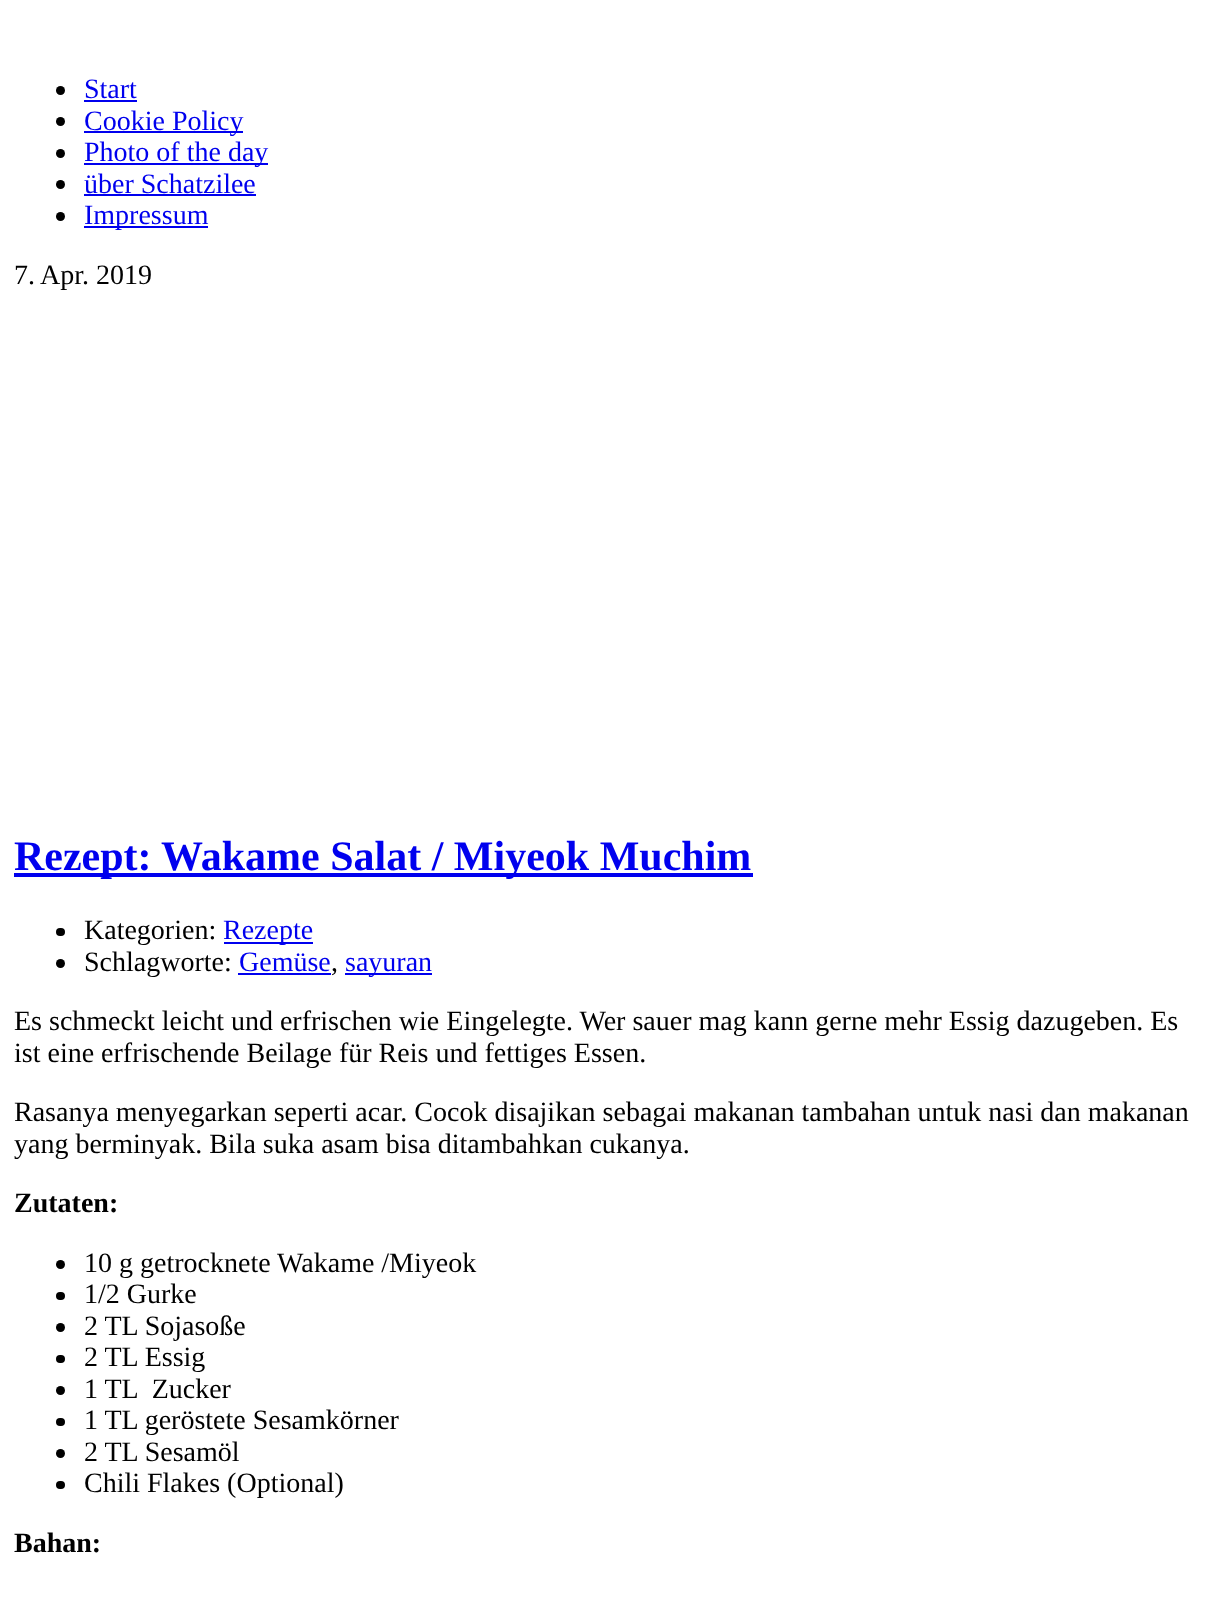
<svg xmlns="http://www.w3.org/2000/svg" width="1206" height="1598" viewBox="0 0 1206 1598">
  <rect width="100%" height="100%" fill="rgb(255,255,255)"/>
  <circle cx="60.5" cy="90.5" r="4.5" fill="rgb(0,0,0)"/>
  <text x="84" y="98" font-family="Liberation Serif" font-size="28" fill="rgb(0,0,238)">Start</text>
  <rect x="84" y="100" width="53" height="2" fill="rgb(0,0,238)"/>
  <circle cx="60.5" cy="121.5" r="4.5" fill="rgb(0,0,0)"/>
  <rect x="84" y="131" width="159" height="2" fill="rgb(0,0,238)"/>
  <text x="84" y="130" font-family="Liberation Serif" font-size="28" fill="rgb(0,0,238)">Cookie Policy</text>
  <circle cx="60.5" cy="153.5" r="4.5" fill="rgb(0,0,0)"/>
  <rect x="84" y="163" width="184" height="2" fill="rgb(0,0,238)"/>
  <text x="84" y="161" font-family="Liberation Serif" font-size="28" fill="rgb(0,0,238)">Photo of the day</text>
  <circle cx="60.5" cy="184.5" r="4.5" fill="rgb(0,0,0)"/>
  <text x="84" y="193" font-family="Liberation Serif" font-size="28" fill="rgb(0,0,238)">über Schatzilee</text>
  <rect x="84" y="194" width="172" height="2" fill="rgb(0,0,238)"/>
  <circle cx="60.5" cy="216.5" r="4.5" fill="rgb(0,0,0)"/>
  <rect x="84" y="226" width="124" height="2" fill="rgb(0,0,238)"/>
  <text x="84" y="224" font-family="Liberation Serif" font-size="28" fill="rgb(0,0,238)">Impressum</text>
  <g font-family="Liberation Serif" font-size="28" fill="rgb(0,0,0)">
    <text x="14" y="284">7.</text>
    <text x="40" y="284">Apr. 2019</text>
  </g>
  <rect x="14" y="873" width="739" height="4" fill="rgb(0,0,238)"/>
  <g font-family="Liberation Serif" font-size="42" font-weight="bold" fill="rgb(0,0,238)">
    <text x="14" y="870">Rezept:</text>
    <text x="161" y="870">Wakame Salat / Miyeok Muchim</text>
  </g>
  <rect x="56" y="928" width="9" height="8" rx="4" fill="rgb(0,0,0)"/>
  <text x="84" y="939" font-family="Liberation Serif" font-size="28" fill="rgb(0,0,0)">Kategorien:</text>
  <rect x="224" y="942" width="89" height="2" fill="rgb(0,0,238)"/>
  <text x="223" y="939" font-family="Liberation Serif" font-size="28" fill="rgb(0,0,238)">Rezepte</text>
  <circle cx="60.5" cy="963.5" r="4.5" fill="rgb(0,0,0)"/>
  <text x="84" y="971" font-family="Liberation Serif" font-size="28" fill="rgb(0,0,0)">Schlagworte:</text>
  <text x="239" y="971" font-family="Liberation Serif" font-size="28" fill="rgb(0,0,238)">Gemüse</text>
  <rect x="238" y="973" width="93" height="2" fill="rgb(0,0,238)"/>
  <rect x="345" y="973" width="87" height="2" fill="rgb(0,0,238)"/>
  <text x="345" y="971" font-family="Liberation Serif" font-size="28" fill="rgb(0,0,238)">sayuran</text>
  <g font-family="Liberation Serif" font-size="28" fill="rgb(0,0,0)">
    <text x="331" y="971">,</text>
    <text>
      <tspan x="14" y="1030">Es schmeckt leicht und erfrischen wie Eingelegte. Wer sauer mag kann gerne mehr Essig dazugeben. Es</tspan>
      <tspan x="14" y="1062">ist eine erfrischende Beilage für Reis und fettiges Essen.</tspan>
    </text>
    <text>
      <tspan x="14" y="1121">Rasanya menyegarkan seperti acar. Cocok disajikan sebagai makanan tambahan untuk nasi dan makanan</tspan>
      <tspan x="14" y="1153">yang berminyak. Bila suka asam bisa ditambahkan cukanya.</tspan>
    </text>
  </g>
  <text x="14" y="1212" font-family="Liberation Serif" font-size="28" font-weight="bold" fill="rgb(0,0,0)">Zutaten:</text>
  <circle cx="60.5" cy="1264.5" r="4.5" fill="rgb(0,0,0)"/>
  <text x="84" y="1272" font-family="Liberation Serif" font-size="28" fill="rgb(0,0,0)">10 g getrocknete Wakame /Miyeok</text>
  <rect x="56" y="1292" width="9" height="8" rx="4" fill="rgb(0,0,0)"/>
  <text x="84" y="1303" font-family="Liberation Serif" font-size="28" fill="rgb(0,0,0)">1/2 Gurke</text>
  <circle cx="60.5" cy="1327.5" r="4.5" fill="rgb(0,0,0)"/>
  <text x="84" y="1335" font-family="Liberation Serif" font-size="28" fill="rgb(0,0,0)">2 TL Sojasoße</text>
  <rect x="56" y="1355" width="9" height="8" rx="4" fill="rgb(0,0,0)"/>
  <text x="84" y="1366" font-family="Liberation Serif" font-size="28" fill="rgb(0,0,0)">2 TL Essig</text>
  <circle cx="60.5" cy="1390.5" r="4.5" fill="rgb(0,0,0)"/>
  <text x="84" y="1398" font-family="Liberation Serif" font-size="28" fill="rgb(0,0,0)" xml:space="preserve">1 TL  Zucker</text>
  <rect x="56" y="1418" width="9" height="8" rx="4" fill="rgb(0,0,0)"/>
  <text x="84" y="1429" font-family="Liberation Serif" font-size="28" fill="rgb(0,0,0)">1 TL geröstete Sesamkörner</text>
  <circle cx="60.5" cy="1453.5" r="4.5" fill="rgb(0,0,0)"/>
  <text x="84" y="1461" font-family="Liberation Serif" font-size="28" fill="rgb(0,0,0)">2 TL Sesamöl</text>
  <rect x="56" y="1481" width="9" height="8" rx="4" fill="rgb(0,0,0)"/>
  <text x="84" y="1492" font-family="Liberation Serif" font-size="28" fill="rgb(0,0,0)">Chili Flakes (Optional)</text>
  <text x="14" y="1552" font-family="Liberation Serif" font-size="28" font-weight="bold" fill="rgb(0,0,0)">Bahan:</text>
</svg>
